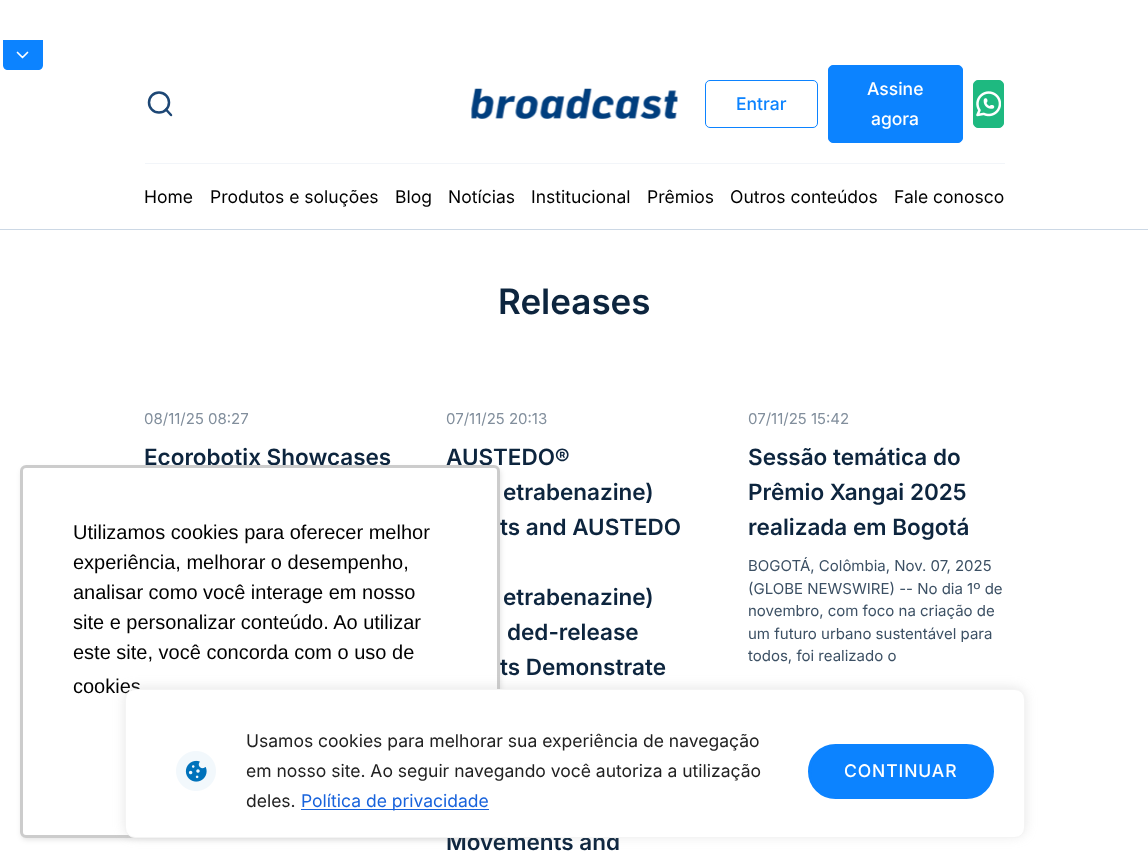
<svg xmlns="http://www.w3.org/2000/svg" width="1148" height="857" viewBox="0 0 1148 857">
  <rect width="100%" height="100%" fill="rgb(255,255,255)"/>
  <rect x="0" y="229" width="1148" height="1" fill="rgb(204,216,229)"/>
  <path d="M3 40H43V65C43 68 41 70 38 70H8C5 70 3 68 3 65Z" fill="rgb(12,131,255)"/>
  <path d="M17.5 52.5L22.5 57.5L27.5 52.5" fill="none" stroke="rgb(255,255,255)" stroke-width="1.7" stroke-linecap="round" stroke-linejoin="round"/>
  <rect x="145" y="163" width="860" height="1" fill="rgb(242,245,249)"/>
  <circle cx="159" cy="102.5" r="10" fill="none" stroke="rgb(29,71,117)" stroke-width="2.5"/>
  <path d="M171 115L166 109.5" fill="none" stroke="rgb(29,71,117)" stroke-width="2.5" stroke-linecap="round" stroke-linejoin="round"/>
  <image x="471" y="88" width="207" height="31" href="pic1.png"/>
  <rect x="705.5" y="80.5" width="112" height="47" rx="4.5" fill="none" stroke="rgb(12,131,255)"/>
  <text x="736" y="110" font-family="Inter" font-size="17.5" font-weight="500" fill="rgb(12,131,255)">Entrar</text>
  <rect x="828.5" y="65.5" width="134" height="77" rx="4.5" fill="rgb(12,131,255)" stroke="rgb(12,131,255)"/>
  <g font-family="Inter" font-size="17.5" font-weight="500" fill="rgb(255,255,255)">
    <text x="867" y="95">Assine</text>
    <text x="871" y="125">agora</text>
  </g>
  <rect x="973.5" y="80.5" width="30" height="47" rx="4.5" fill="rgb(30,185,128)" stroke="rgb(30,185,128)"/>
  <image x="976" y="91" width="25" height="26" href="pic2.png"/>
  <g font-family="Inter" font-size="17.5" fill="rgb(0,0,0)">
    <text x="144" y="203">Home</text>
    <text x="210" y="203">Produtos e soluções</text>
    <text x="395" y="203">Blog</text>
    <text x="448" y="203">Notícias</text>
    <text x="531" y="203">Institucional</text>
    <text x="647" y="203">Prêmios</text>
    <text x="730" y="203">Outros conteúdos</text>
    <text x="894" y="203">Fale conosco</text>
  </g>
  <text x="498" y="314" font-family="Inter" font-size="35" font-weight="600" fill="rgb(13,37,62)">Releases</text>
  <text x="144" y="424" font-family="Inter" font-size="15" fill="rgb(129,142,156)">08/11/25 08:27</text>
  <text x="144" y="465" font-family="Inter" font-size="22.5" font-weight="600" fill="rgb(13,37,62)">Ecorobotix Showcases</text>
  <text x="446" y="424" font-family="Inter" font-size="15" fill="rgb(129,142,156)">07/11/25 20:13</text>
  <g font-family="Inter" font-size="22.5" font-weight="600" fill="rgb(13,37,62)">
    <text x="446" y="465">AUSTEDO®</text>
    <text x="503" y="500">etrabenazine)</text>
    <text x="500" y="535">ts and AUSTEDO</text>
    <text x="503" y="605">etrabenazine)</text>
    <text x="507" y="640">ded-release</text>
    <text x="500" y="675">ts Demonstrate</text>
    <text x="446" y="850">Movements and</text>
  </g>
  <text x="748" y="424" font-family="Inter" font-size="15" fill="rgb(129,142,156)">07/11/25 15:42</text>
  <g font-family="Inter" font-size="22.5" font-weight="600" fill="rgb(13,37,62)">
    <text>
      <tspan x="748" y="465">Sessão temática do</tspan>
      <tspan x="748" y="500">Prêmio Xangai 2025</tspan>
      <tspan x="748" y="535">realizada em Bogotá</tspan>
    </text>
  </g>
  <g font-family="Inter" font-size="15" fill="rgb(60,80,100)">
    <text>
      <tspan x="748" y="571">BOGOTÁ, Colômbia, Nov. 07, 2025</tspan>
      <tspan x="748" y="594">(GLOBE NEWSWIRE) -- No dia 1º de</tspan>
      <tspan x="748" y="616">novembro, com foco na criação de</tspan>
      <tspan x="748" y="639">um futuro urbano sustentável para</tspan>
      <tspan x="748" y="661">todos, foi realizado o</tspan>
    </text>
  </g>
  <rect x="21" y="468" width="480" height="372" rx="6" fill="rgba(0,0,0,0.1)" filter="blur(2.5px)"/>
  <rect x="20" y="465" width="480" height="373" rx="6" fill="rgb(255,255,255)"/>
  <rect x="21.5" y="466.5" width="477" height="370" rx="4.5" fill="none" stroke="rgba(0,0,0,0.2)" stroke-width="3"/>
  <g font-family="Liberation Sans" font-size="20" fill="rgb(0,0,0)">
    <text>
      <tspan x="73" y="539">Utilizamos cookies para oferecer melhor</tspan>
      <tspan x="73" y="569">experiência, melhorar o desempenho,</tspan>
      <tspan x="73" y="599">analisar como você interage em nosso</tspan>
      <tspan x="73" y="629">site e personalizar conteúdo. Ao utilizar</tspan>
      <tspan x="73" y="659">este site, você concorda com o uso de</tspan>
      <tspan x="73" y="693">cookies</tspan>
    </text>
  </g>
  <rect x="125" y="688" width="900" height="148" rx="10" fill="rgba(172,171,171,0.3)" filter="blur(6px)"/>
  <rect x="125.5" y="689.5" width="899" height="148" rx="9.5" fill="rgb(255,255,255)" stroke="rgb(244,244,244)"/>
  <image x="176" y="751" width="40" height="40" href="pic3.png"/>
  <g font-family="Inter" font-size="17.5" fill="rgb(33,33,33)">
    <text>
      <tspan x="246" y="747">Usamos cookies para melhorar sua experiência de navegação</tspan>
      <tspan x="246" y="777">em nosso site. Ao seguir navegando você autoriza a utilização</tspan>
      <tspan x="246" y="807">deles.</tspan>
    </text>
  </g>
  <rect x="301" y="809" width="188" height="1" fill="rgb(24,99,220)"/>
  <text x="301" y="807" font-family="Inter" font-size="17.5" fill="rgb(24,99,220)">Política de privacidade</text>
  <rect x="809.5" y="745.5" width="183" height="52" rx="26" fill="rgb(12,131,255)" stroke="rgb(12,131,255)" stroke-width="3"/>
  <text x="844" y="777" font-family="Inter" font-size="17.5" font-weight="500" letter-spacing="0.9" fill="rgb(255,255,255)">CONTINUAR</text>
</svg>
